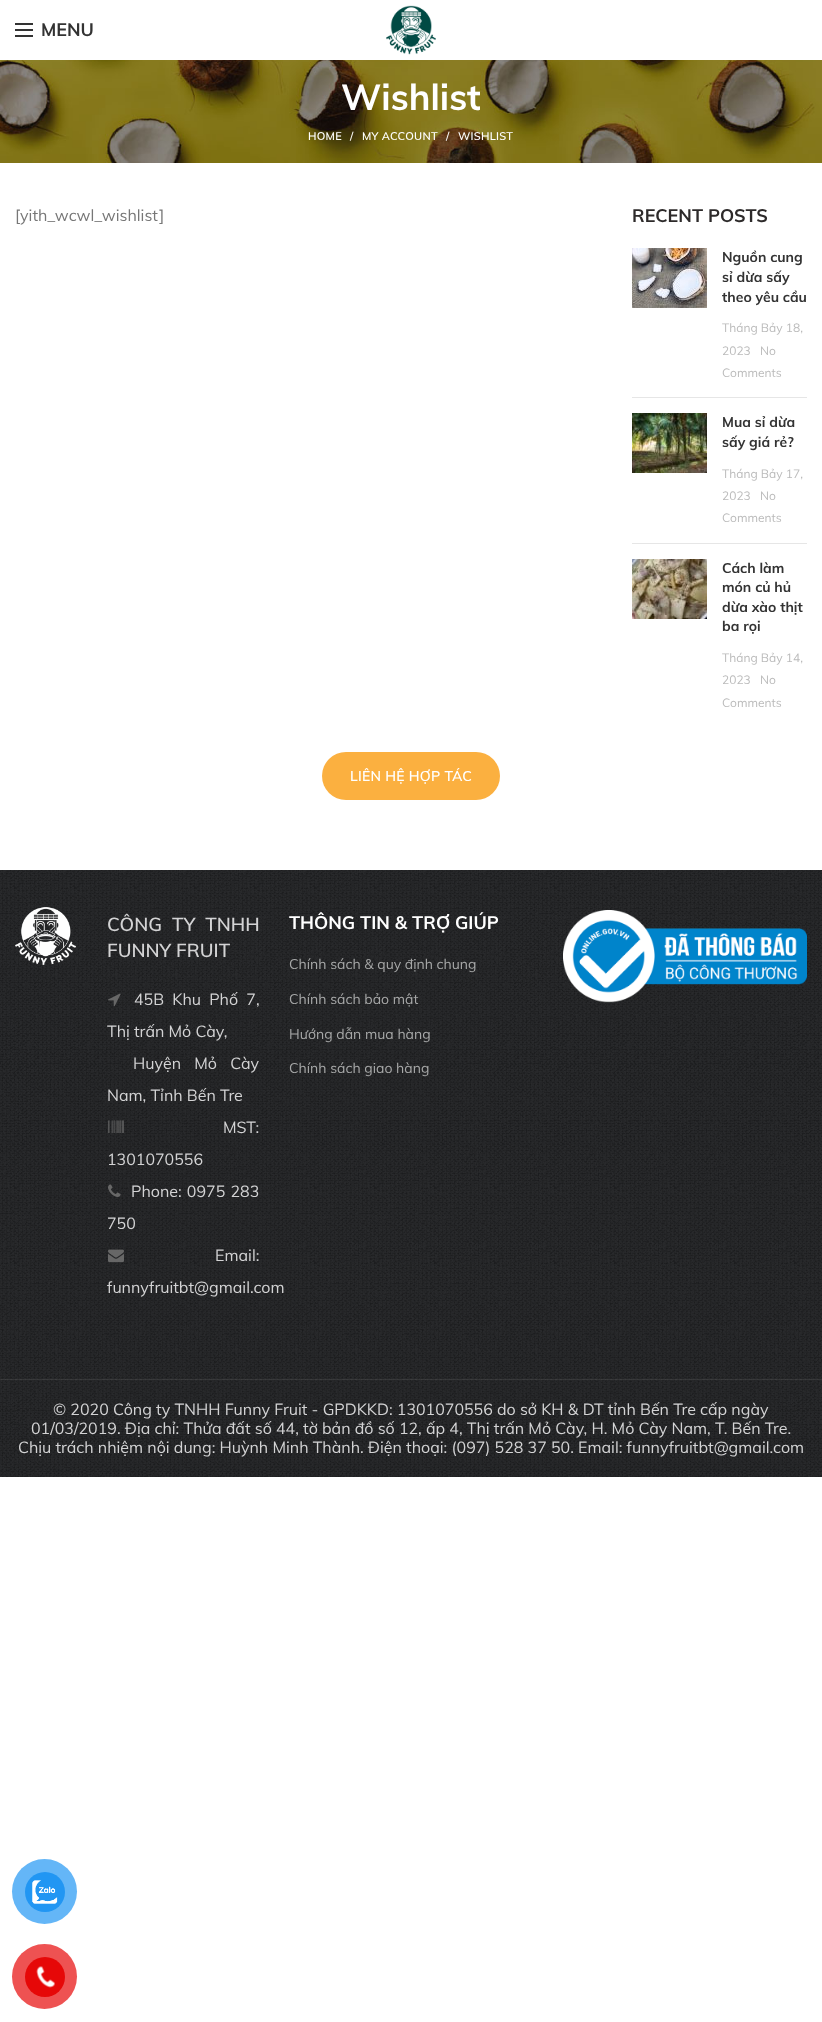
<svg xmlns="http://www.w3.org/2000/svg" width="822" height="2022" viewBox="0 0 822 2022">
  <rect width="100%" height="100%" fill="rgb(255,255,255)"/>
  <rect x="15" y="29" width="18" height="2" fill="rgb(51,51,51)"/>
  <rect x="15" y="23" width="18" height="2" fill="rgb(51,51,51)"/>
  <rect x="15" y="35" width="18" height="2" fill="rgb(51,51,51)"/>
  <text x="41" y="36" font-family="Muli" font-size="18" font-weight="bold" fill="rgb(51,51,51)">MENU</text>
  <image x="386" y="5" width="50" height="50" href="pic1.png"/>
  <image x="0" y="60" width="822" height="103" href="pic2.png"/>
  <text x="341" y="110" font-family="Muli" font-size="36" font-weight="bold" fill="rgb(255,255,255)">Wishlist</text>
  <g font-family="Muli" font-size="11" font-weight="600" letter-spacing="0.25" fill="rgb(255,255,255)">
    <text x="308" y="140">HOME</text>
    <text x="350" y="140">/</text>
    <text x="362" y="140">MY ACCOUNT</text>
    <text x="446" y="140">/</text>
    <text x="458" y="140">WISHLIST</text>
  </g>
  <text x="15" y="221" font-family="Muli" font-size="16" fill="rgb(119,119,119)">[yith_wcwl_wishlist]</text>
  <text x="632" y="222" font-family="Muli" font-size="18" font-weight="bold" fill="rgb(45,42,42)">RECENT POSTS</text>
  <rect x="632" y="397" width="175" height="1" fill="rgb(230,230,230)"/>
  <image x="632" y="248" width="75" height="60" href="pic3.png"/>
  <g font-family="Muli" font-size="14" font-weight="bold" fill="rgb(51,51,51)">
    <text>
      <tspan x="722" y="262">Nguồn cung</tspan>
      <tspan x="722" y="282">sỉ dừa sấy</tspan>
      <tspan x="722" y="302">theo yêu cầu</tspan>
    </text>
  </g>
  <g font-family="Muli" font-size="12" fill="rgb(187,187,187)">
    <text>
      <tspan x="722" y="332">Tháng Bảy 18,</tspan>
      <tspan x="722" y="355">2023</tspan>
    </text>
    <text x="760" y="355">No</text>
    <text x="722" y="377">Comments</text>
  </g>
  <rect x="632" y="543" width="175" height="1" fill="rgb(230,230,230)"/>
  <image x="632" y="413" width="75" height="60" href="pic4.png"/>
  <g font-family="Muli" font-size="14" font-weight="bold" fill="rgb(51,51,51)">
    <text>
      <tspan x="722" y="427">Mua sỉ dừa</tspan>
      <tspan x="722" y="447">sấy giá rẻ?</tspan>
    </text>
  </g>
  <g font-family="Muli" font-size="12" fill="rgb(187,187,187)">
    <text>
      <tspan x="722" y="478">Tháng Bảy 17,</tspan>
      <tspan x="722" y="500">2023</tspan>
    </text>
    <text x="760" y="500">No</text>
    <text x="722" y="522">Comments</text>
  </g>
  <image x="632" y="559" width="75" height="60" href="pic5.png"/>
  <g font-family="Muli" font-size="14" font-weight="bold" fill="rgb(51,51,51)">
    <text>
      <tspan x="722" y="573">Cách làm</tspan>
      <tspan x="722" y="592">món củ hủ</tspan>
      <tspan x="722" y="612">dừa xào thịt</tspan>
      <tspan x="722" y="631">ba rọi</tspan>
    </text>
  </g>
  <g font-family="Muli" font-size="12" fill="rgb(187,187,187)">
    <text>
      <tspan x="722" y="662">Tháng Bảy 14,</tspan>
      <tspan x="722" y="684">2023</tspan>
    </text>
    <text x="760" y="684">No</text>
    <text x="722" y="707">Comments</text>
  </g>
  <rect x="322" y="752" width="178" height="48" rx="24" fill="rgb(251,176,64)"/>
  <text x="350" y="781" font-family="Muli" font-size="14" font-weight="600" letter-spacing="0.25" fill="rgb(255,255,255)">LIÊN HỆ HỢP TÁC</text>
  <image x="0" y="870" width="822" height="607" href="pic6.png"/>
  <image x="15" y="907" width="61" height="58" href="pic7.png"/>
  <g font-family="Muli" font-size="18.75" font-weight="600" fill="rgb(211,211,212)">
    <text>
      <tspan x="107" y="931" word-spacing="5">CÔNG TY TNHH</tspan>
      <tspan x="107" y="957">FUNNY FRUIT</tspan>
    </text>
  </g>
  <image x="108" y="993" width="13" height="14" href="pic8.png"/>
  <g font-family="Muli" font-size="16" fill="rgb(211,211,212)">
    <text x="134" y="1005" word-spacing="4">45B Khu Phố 7,</text>
    <text x="107" y="1037">Thị trấn Mỏ Cày,</text>
    <text x="133" y="1069" word-spacing="9">Huyện Mỏ Cày</text>
    <text x="107" y="1101">Nam, Tỉnh Bến Tre</text>
  </g>
  <image x="108" y="1120" width="16" height="13" href="pic9.png"/>
  <g font-family="Muli" font-size="16" fill="rgb(211,211,212)">
    <text x="223" y="1133">MST:</text>
    <text x="107" y="1165">1301070556</text>
  </g>
  <image x="108" y="1184" width="13" height="13" href="pic10.png"/>
  <g font-family="Muli" font-size="16" fill="rgb(211,211,212)">
    <text x="131" y="1197" word-spacing="1">Phone: 0975 283</text>
    <text x="107" y="1229">750</text>
  </g>
  <image x="108" y="1249" width="16" height="14" href="pic11.png"/>
  <g font-family="Muli" font-size="16" fill="rgb(211,211,212)">
    <text x="215" y="1261">Email:</text>
    <text x="107" y="1293">funnyfruitbt@gmail.com</text>
  </g>
  <text x="289" y="929" font-family="Muli" font-size="18" font-weight="bold" fill="rgb(255,255,255)">THÔNG TIN &amp; TRỢ GIÚP</text>
  <g font-family="Muli" font-size="14" fill="rgb(167,168,168)">
    <text x="289" y="969">Chính sách &amp; quy định chung</text>
    <text x="289" y="1004">Chính sách bảo mật</text>
    <text x="289" y="1039">Hướng dẫn mua hàng</text>
    <text x="289" y="1073">Chính sách giao hàng</text>
  </g>
  <image x="563" y="910" width="244" height="93" href="pic12.png"/>
  <rect x="0" y="1379" width="822" height="1" fill="rgba(255,255,255,0.1)"/>
  <g font-family="Muli" font-size="16" fill="rgb(211,211,212)">
    <text x="53" y="1415">© 2020 Công ty TNHH Funny Fruit - GPDKKD: 1301070556 do sở KH &amp; DT tỉnh Bến Tre cấp ngày</text>
    <text x="31" y="1434">01/03/2019. Địa chỉ: Thửa đất số 44, tờ bản đồ số 12, ấp 4, Thị trấn Mỏ Cày, H. Mỏ Cày Nam, T. Bến Tre.</text>
    <text x="18" y="1453">Chịu trách nhiệm nội dung: Huỳnh Minh Thành. Điện thoại: (097) 528 37 50. Email: funnyfruitbt@gmail.com</text>
  </g>
  <circle cx="44.5" cy="1891.5" r="32.5" fill="rgb(100,182,247)"/>
  <circle cx="45" cy="1892" r="20" fill="rgb(33,150,243)"/>
  <image x="32" y="1880" width="26" height="24" href="pic13.png"/>
  <circle cx="44.5" cy="1976.5" r="32.5" fill="rgb(238,82,82)"/>
  <circle cx="45" cy="1977" r="20" fill="rgb(230,8,8)"/>
  <image x="36" y="1966" width="19" height="22" href="pic14.png"/>
</svg>
